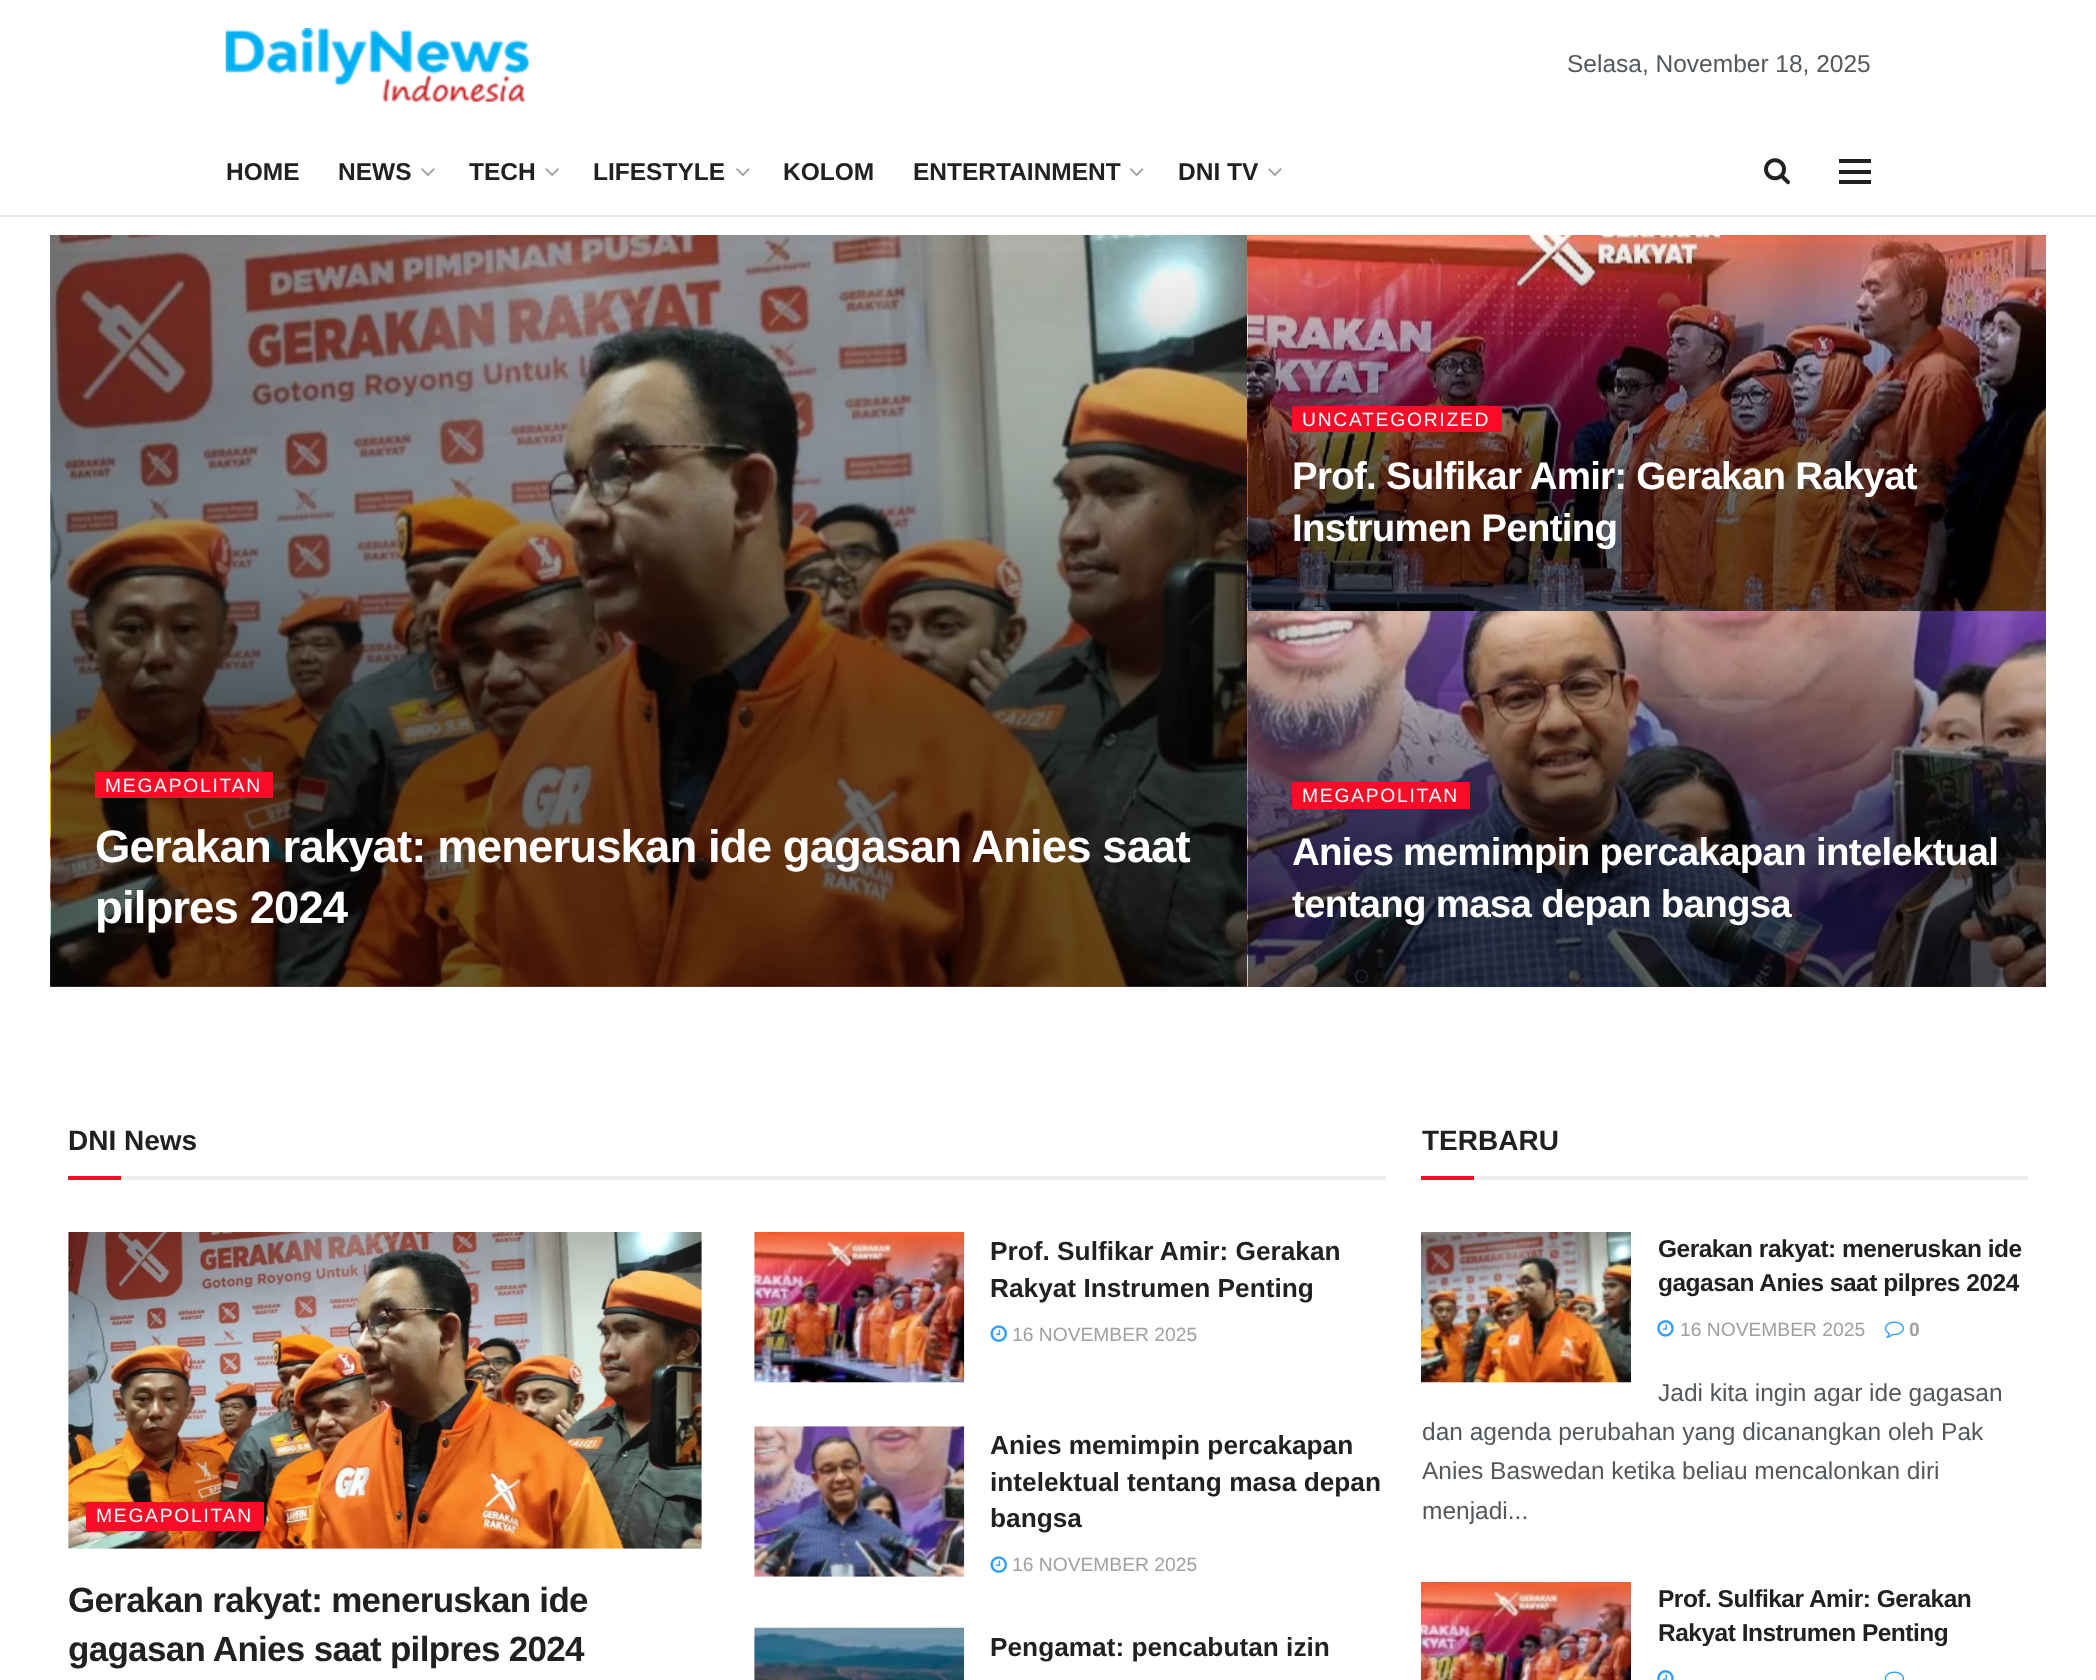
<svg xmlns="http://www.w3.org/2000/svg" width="2096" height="1680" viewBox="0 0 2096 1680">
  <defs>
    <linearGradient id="g1" gradientUnits="userSpaceOnUse" x1="623" y1="234" x2="623" y2="987"><stop offset="0" stop-color="rgb(0,0,0)" stop-opacity="0"/><stop offset="0.65" stop-color="rgb(0,0,0)" stop-opacity="0.6"/><stop offset="1" stop-color="rgb(0,0,0)" stop-opacity="0.6"/></linearGradient>
    <linearGradient id="g2" gradientUnits="userSpaceOnUse" x1="1621" y1="234" x2="1621" y2="611"><stop offset="0" stop-color="rgb(0,0,0)" stop-opacity="0"/><stop offset="0.65" stop-color="rgb(0,0,0)" stop-opacity="0.6"/><stop offset="1" stop-color="rgb(0,0,0)" stop-opacity="0.6"/></linearGradient>
    <linearGradient id="g3" gradientUnits="userSpaceOnUse" x1="1621" y1="611" x2="1621" y2="987"><stop offset="0" stop-color="rgb(0,0,0)" stop-opacity="0"/><stop offset="0.65" stop-color="rgb(0,0,0)" stop-opacity="0.6"/><stop offset="1" stop-color="rgb(0,0,0)" stop-opacity="0.6"/></linearGradient>
  </defs>
  <rect width="100%" height="100%" fill="rgb(255,255,255)"/>
  <image x="225" y="28" width="304" height="74" href="pic1.png"/>
  <text x="1567" y="72" font-family="Liberation Sans" font-size="24.5" fill="rgb(83,88,92)">Selasa, November 18, 2025</text>
  <rect x="0" y="215" width="2096" height="2" fill="rgb(232,232,232)"/>
  <g font-family="Liberation Sans" font-size="24.5" font-weight="bold" fill="rgb(33,33,33)">
    <text x="226" y="180">HOME</text>
    <text x="338" y="180">NEWS</text>
  </g>
  <image x="421" y="168" width="14" height="8" href="pic2.png"/>
  <text x="469" y="180" font-family="Liberation Sans" font-size="24.5" font-weight="bold" fill="rgb(33,33,33)">TECH</text>
  <image x="545" y="168" width="14" height="8" href="pic3.png"/>
  <text x="593" y="180" font-family="Liberation Sans" font-size="24.5" font-weight="bold" fill="rgb(33,33,33)">LIFESTYLE</text>
  <image x="736" y="168" width="14" height="8" href="pic2.png"/>
  <g font-family="Liberation Sans" font-size="24.5" font-weight="bold" fill="rgb(33,33,33)">
    <text x="783" y="180">KOLOM</text>
    <text x="913" y="180">ENTERTAINMENT</text>
  </g>
  <image x="1129" y="168" width="15" height="9" href="pic4.png"/>
  <text x="1178" y="180" font-family="Liberation Sans" font-size="24.5" font-weight="bold" fill="rgb(33,33,33)">DNI TV</text>
  <image x="1268" y="168" width="14" height="8" href="pic2.png"/>
  <image x="1764" y="158" width="26" height="27" href="pic5.png"/>
  <rect x="1839" y="159" width="32" height="4" fill="rgb(33,33,33)"/>
  <rect x="1839" y="170" width="32" height="4" fill="rgb(33,33,33)"/>
  <rect x="1839" y="180" width="32" height="4" fill="rgb(33,33,33)"/>
  <rect x="51" y="986" width="1197" height="1" fill="rgb(247,247,247)"/>
  <image x="50" y="235" width="1198" height="752" href="pic6.png"/>
  <rect x="51" y="252" width="1197" height="735" fill="url(#g1)"/>
  <rect x="95" y="772" width="178" height="26" fill="rgb(247,13,40)"/>
  <text x="105" y="792" font-family="Liberation Sans" font-size="19.25" letter-spacing="1.75" fill="rgb(255,255,255)">MEGAPOLITAN</text>
  <g font-family="Liberation Sans" font-size="45.5" font-weight="bold" letter-spacing="-0.9" fill="rgb(255,255,255)">
    <text>
      <tspan x="95" y="862">Gerakan rakyat: meneruskan ide gagasan Anies saat</tspan>
      <tspan x="95" y="923">pilpres 2024</tspan>
    </text>
  </g>
  <image x="1247" y="235" width="799" height="376" href="pic7.png"/>
  <rect x="1248" y="243" width="798" height="368" fill="url(#g2)"/>
  <rect x="1292" y="406" width="210" height="26" fill="rgb(247,13,40)"/>
  <text x="1302" y="426" font-family="Liberation Sans" font-size="19.25" letter-spacing="1.75" fill="rgb(255,255,255)">UNCATEGORIZED</text>
  <g font-family="Liberation Sans" font-size="38.5" font-weight="bold" letter-spacing="-0.75" fill="rgb(255,255,255)">
    <text>
      <tspan x="1292" y="489">Prof. Sulfikar Amir: Gerakan Rakyat</tspan>
      <tspan x="1292" y="541">Instrumen Penting</tspan>
    </text>
  </g>
  <text x="1313" y="607" font-family="Liberation Sans" font-size="19.25" fill="rgb(23,26,36)">1</text>
  <image x="1247" y="611" width="799" height="376" href="pic8.png"/>
  <rect x="1248" y="620" width="798" height="367" fill="url(#g3)"/>
  <rect x="1292" y="782" width="178" height="27" fill="rgb(247,13,40)"/>
  <text x="1302" y="802" font-family="Liberation Sans" font-size="19.25" letter-spacing="1.75" fill="rgb(255,255,255)">MEGAPOLITAN</text>
  <g font-family="Liberation Sans" font-size="38.5" font-weight="bold" letter-spacing="-0.75" fill="rgb(255,255,255)">
    <text>
      <tspan x="1292" y="865">Anies memimpin percakapan intelektual</tspan>
      <tspan x="1292" y="917">tentang masa depan bangsa</tspan>
    </text>
  </g>
  <text x="1354" y="983" font-family="Liberation Sans" font-size="19.25" fill="rgb(31,33,44)">O</text>
  <rect x="121" y="1176" width="1265" height="4" fill="rgb(238,238,238)"/>
  <text x="68" y="1150" font-family="Liberation Sans" font-size="28" font-weight="bold" fill="rgb(33,33,33)">DNI News</text>
  <rect x="68" y="1176" width="53" height="4" fill="rgb(247,13,40)"/>
  <rect x="68" y="1232" width="634" height="317" fill="rgb(247,247,247)"/>
  <image x="68" y="1232" width="634" height="317" href="pic9.png"/>
  <rect x="86" y="1502" width="178" height="29" fill="rgb(247,13,40)"/>
  <text x="96" y="1522" font-family="Liberation Sans" font-size="19.25" letter-spacing="1.75" fill="rgb(255,255,255)">MEGAPOLITAN</text>
  <g font-family="Liberation Sans" font-size="35" font-weight="bold" letter-spacing="-0.7" fill="rgb(33,33,33)">
    <text>
      <tspan x="68" y="1612">Gerakan rakyat: meneruskan ide</tspan>
      <tspan x="68" y="1661">gagasan Anies saat pilpres 2024</tspan>
    </text>
  </g>
  <rect x="754" y="1232" width="210" height="151" fill="rgb(247,247,247)"/>
  <image x="754" y="1232" width="211" height="151" href="pic10.png"/>
  <g font-family="Liberation Sans" font-size="26.25" font-weight="bold" fill="rgb(33,33,33)">
    <text>
      <tspan x="990" y="1260">Prof. Sulfikar Amir: Gerakan</tspan>
      <tspan x="990" y="1297">Rakyat Instrumen Penting</tspan>
    </text>
  </g>
  <image x="990" y="1325" width="17" height="17" href="pic11.png"/>
  <text x="1012" y="1341" font-family="Liberation Sans" font-size="19.25" fill="rgb(160,160,160)">16 NOVEMBER 2025</text>
  <rect x="754" y="1426" width="210" height="151" fill="rgb(247,247,247)"/>
  <image x="754" y="1426" width="211" height="151" href="pic12.png"/>
  <g font-family="Liberation Sans" font-size="26.25" font-weight="bold" fill="rgb(33,33,33)">
    <text>
      <tspan x="990" y="1454">Anies memimpin percakapan</tspan>
      <tspan x="990" y="1491">intelektual tentang masa depan</tspan>
      <tspan x="990" y="1527">bangsa</tspan>
    </text>
  </g>
  <image x="990" y="1556" width="17" height="17" href="pic11.png"/>
  <text x="1012" y="1571" font-family="Liberation Sans" font-size="19.25" fill="rgb(160,160,160)">16 NOVEMBER 2025</text>
  <rect x="754" y="1628" width="1" height="52" fill="rgb(247,247,247)"/>
  <image x="754" y="1627" width="211" height="53" href="pic13.png"/>
  <text x="990" y="1656" font-family="Liberation Sans" font-size="26.25" font-weight="bold" fill="rgb(33,33,33)">Pengamat: pencabutan izin</text>
  <rect x="1474" y="1176" width="554" height="4" fill="rgb(238,238,238)"/>
  <text x="1422" y="1150" font-family="Liberation Sans" font-size="28" font-weight="bold" fill="rgb(33,33,33)">TERBARU</text>
  <rect x="1421" y="1176" width="53" height="4" fill="rgb(247,13,40)"/>
  <rect x="1421" y="1382" width="210" height="1" fill="rgb(247,247,247)"/>
  <image x="1421" y="1232" width="210" height="151" href="pic14.png"/>
  <g font-family="Liberation Sans" font-size="24.5" font-weight="bold" letter-spacing="-0.5" fill="rgb(33,33,33)">
    <text>
      <tspan x="1658" y="1257">Gerakan rakyat: meneruskan ide</tspan>
      <tspan x="1658" y="1291">gagasan Anies saat pilpres 2024</tspan>
    </text>
  </g>
  <image x="1657" y="1320" width="17" height="17" href="pic15.png"/>
  <text x="1680" y="1336" font-family="Liberation Sans" font-size="19.25" fill="rgb(160,160,160)">16 NOVEMBER 2025</text>
  <image x="1884" y="1321" width="20" height="17" href="pic16.png"/>
  <text x="1909" y="1336" font-family="Liberation Sans" font-size="19.25" font-weight="bold" fill="rgb(160,160,160)">0</text>
  <g font-family="Liberation Sans" font-size="24.5" fill="rgb(83,88,92)">
    <text x="1658" y="1401">Jadi kita ingin agar ide gagasan</text>
    <text>
      <tspan x="1422" y="1440">dan agenda perubahan yang dicanangkan oleh Pak</tspan>
      <tspan x="1422" y="1479">Anies Baswedan ketika beliau mencalonkan diri</tspan>
      <tspan x="1422" y="1519">menjadi...</tspan>
    </text>
  </g>
  <image x="1421" y="1582" width="210" height="98" href="pic17.png"/>
  <g font-family="Liberation Sans" font-size="24.5" font-weight="bold" letter-spacing="-0.5" fill="rgb(33,33,33)">
    <text>
      <tspan x="1658" y="1607">Prof. Sulfikar Amir: Gerakan</tspan>
      <tspan x="1658" y="1641">Rakyat Instrumen Penting</tspan>
    </text>
  </g>
  <image x="1657" y="1670" width="17" height="10" href="pic18.png"/>
  <image x="1884" y="1671" width="20" height="9" href="pic19.png"/>
</svg>
